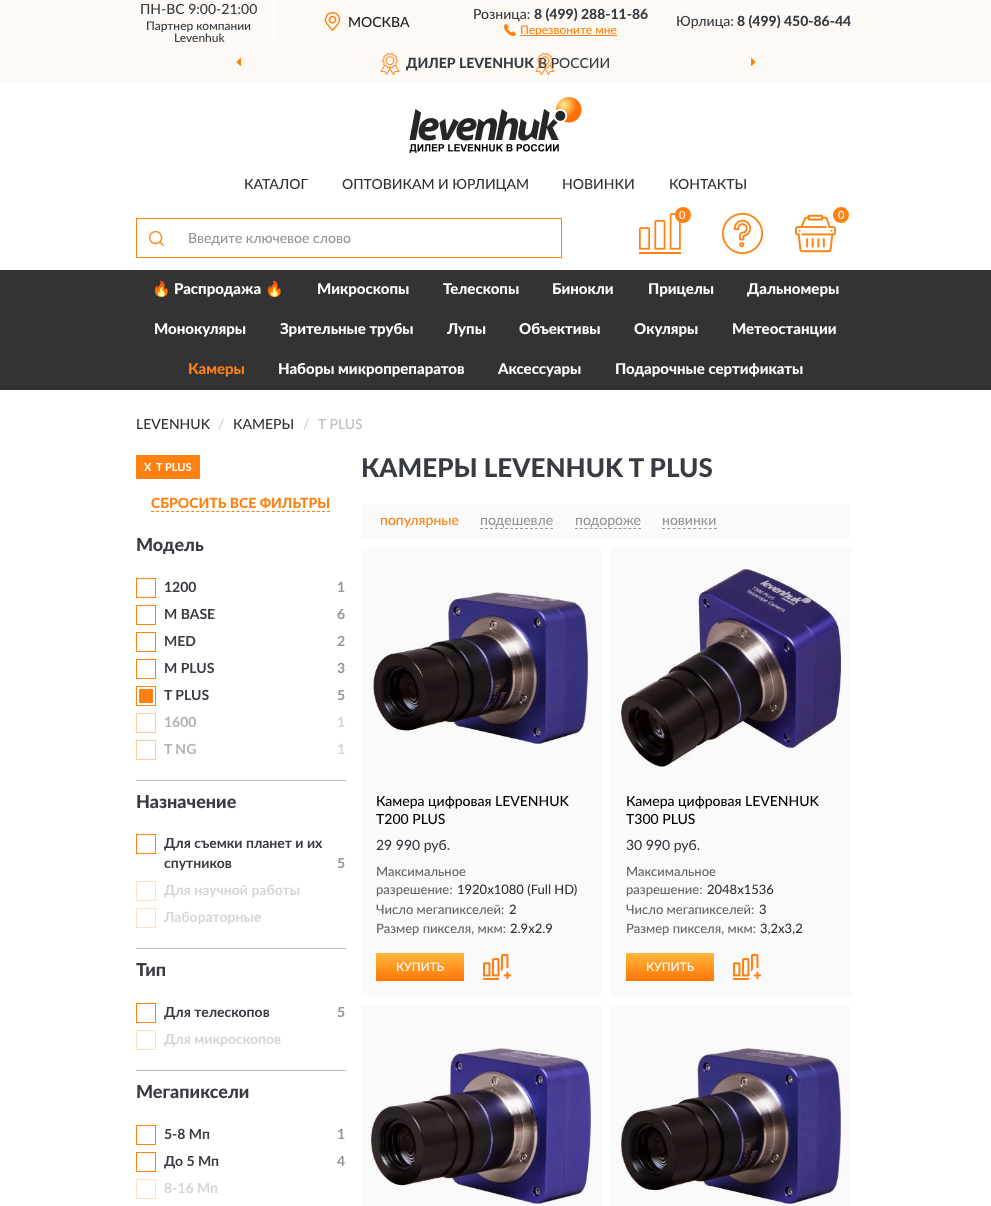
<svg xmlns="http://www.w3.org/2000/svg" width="991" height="1206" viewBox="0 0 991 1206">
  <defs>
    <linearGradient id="g1" gradientUnits="userSpaceOnUse" x1="420" y1="981" x2="420" y2="953"><stop offset="0" stop-color="rgb(255,117,7)"/><stop offset="1" stop-color="rgb(255,183,61)"/></linearGradient>
    <linearGradient id="g2" gradientUnits="userSpaceOnUse" x1="670" y1="981" x2="670" y2="953"><stop offset="0" stop-color="rgb(255,117,7)"/><stop offset="1" stop-color="rgb(255,183,61)"/></linearGradient>
  </defs>
  <rect width="100%" height="100%" fill="rgb(255,255,255)"/>
  <rect x="0" y="0" width="991" height="82" fill="rgb(253,250,246)"/>
  <rect x="273" y="0" width="1" height="44" fill="rgb(255,255,255)"/>
  <text x="140" y="14" font-family="Lato" font-size="14" font-weight="500" fill="rgb(57,59,66)">ПН-ВС 9:00-21:00</text>
  <g font-family="Lato" font-size="12" font-weight="500" fill="rgb(57,59,66)">
    <text x="146" y="30">Партнер компании</text>
    <text x="174" y="42">Levenhuk</text>
  </g>
  <image x="324" y="12" width="17" height="19" href="pic1.png"/>
  <text x="348" y="27" font-family="Lato" font-size="14" font-weight="500" fill="rgb(34,34,34)">МОСКВА</text>
  <text x="473" y="19" font-family="Lato" font-size="14" font-weight="500" fill="rgb(57,59,66)">Розница:</text>
  <text x="534" y="19" font-family="Lato" font-size="14" font-weight="900" fill="rgb(57,59,66)">8 (499) 288-11-86</text>
  <image x="504" y="24" width="12" height="12" href="pic2.png"/>
  <rect x="520" y="35" width="97" height="1" fill="rgb(255,129,17)"/>
  <text x="520" y="34" font-family="Lato" font-size="12" font-weight="500" fill="rgb(255,129,17)">Перезвоните мне</text>
  <text x="676" y="26" font-family="Lato" font-size="14" font-weight="500" fill="rgb(57,59,66)">Юрлица:</text>
  <text x="737" y="26" font-family="Lato" font-size="14" font-weight="900" fill="rgb(57,59,66)">8 (499) 450-86-44</text>
  <image x="380" y="53" width="175" height="22" href="pic3.png"/>
  <text x="406" y="68" font-family="Lato" font-size="14" font-weight="900" fill="rgb(57,59,66)">ДИЛЕР LEVENHUK</text>
  <text x="538" y="68" font-family="Lato" font-size="14" font-weight="500" fill="rgb(57,59,66)">В РОССИИ</text>
  <image x="236" y="58" width="5" height="8" href="pic4.png"/>
  <image x="751" y="58" width="5" height="8" href="pic5.png"/>
  <image x="409" y="97" width="173" height="56" href="pic6.png"/>
  <g font-family="Lato" font-size="14" font-weight="500" fill="rgb(51,51,51)">
    <text x="244" y="189">КАТАЛОГ</text>
    <text x="342" y="189">ОПТОВИКАМ И ЮРЛИЦАМ</text>
    <text x="562" y="189">НОВИНКИ</text>
    <text x="669" y="189">КОНТАКТЫ</text>
  </g>
  <image x="639" y="213" width="42" height="41" href="pic7.png"/>
  <circle cx="683" cy="215" r="8" fill="rgb(255,129,17)"/>
  <text x="679" y="219" font-family="Lato" font-size="11" font-weight="500" fill="rgb(255,255,255)">0</text>
  <image x="722" y="213" width="41" height="41" href="pic8.png"/>
  <image x="795" y="214" width="41" height="39" href="pic9.png"/>
  <circle cx="841" cy="215" r="8" fill="rgb(255,129,17)"/>
  <text x="838" y="219" font-family="Lato" font-size="11" font-weight="500" fill="rgb(255,255,255)">0</text>
  <image x="149" y="231" width="15" height="15" href="pic10.png"/>
  <rect x="136" y="218" width="426" height="1" fill="rgb(255,129,17)"/>
  <rect x="136" y="257" width="40" height="1" fill="rgb(255,129,17)"/>
  <rect x="136" y="218" width="1" height="40" fill="rgb(255,129,17)"/>
  <rect x="561" y="218" width="1" height="40" fill="rgb(255,129,17)"/>
  <rect x="176" y="257" width="386" height="1" fill="rgb(255,129,17)"/>
  <text x="188" y="243" font-family="Lato" font-size="14" font-weight="500" fill="rgb(150,149,149)">Введите ключевое слово</text>
  <rect x="0" y="270" width="991" height="120" fill="rgb(51,51,51)"/>
  <text x="152" y="294" font-family="Noto Color Emoji" font-size="15" fill="rgb(255,255,255)">🔥</text>
  <text x="174" y="294" font-family="Lato" font-size="15" font-weight="900" fill="rgb(255,255,255)">Распродажа</text>
  <text x="265" y="294" font-family="Noto Color Emoji" font-size="15" fill="rgb(255,255,255)">🔥</text>
  <g font-family="Lato" font-size="15" font-weight="900" fill="rgb(255,255,255)">
    <text x="317" y="294">Микроскопы</text>
    <text x="443" y="294">Телескопы</text>
    <text x="552" y="294">Бинокли</text>
    <text x="648" y="294">Прицелы</text>
    <text x="747" y="294">Дальномеры</text>
    <text x="154" y="334">Монокуляры</text>
    <text x="280" y="334">Зрительные трубы</text>
    <text x="447" y="334">Лупы</text>
    <text x="519" y="334">Объективы</text>
    <text x="634" y="334">Окуляры</text>
    <text x="732" y="334">Метеостанции</text>
  </g>
  <text x="188" y="374" font-family="Lato" font-size="15" font-weight="900" fill="rgb(255,129,17)">Камеры</text>
  <g font-family="Lato" font-size="15" font-weight="900" fill="rgb(255,255,255)">
    <text x="278" y="374">Наборы микропрепаратов</text>
    <text x="498" y="374">Аксессуары</text>
    <text x="615" y="374">Подарочные сертификаты</text>
  </g>
  <text x="136" y="429" font-family="Lato" font-size="14" font-weight="500" fill="rgb(51,51,51)">LEVENHUK</text>
  <text x="218" y="429" font-family="Lato" font-size="14" font-weight="500" fill="rgb(204,204,204)">/</text>
  <text x="233" y="429" font-family="Lato" font-size="14" font-weight="500" fill="rgb(51,51,51)">КАМЕРЫ</text>
  <text x="303" y="429" font-family="Lato" font-size="14" font-weight="500" fill="rgb(204,204,204)">/</text>
  <text x="318" y="429" font-family="Lato" font-size="14" font-weight="500" fill="rgb(189,189,189)">T PLUS</text>
  <rect x="136" y="455" width="64" height="24" fill="rgb(255,129,17)"/>
  <g font-family="Lato" font-size="11" font-weight="bold" fill="rgb(255,255,255)">
    <text x="144" y="471">X</text>
    <text x="156" y="471">T PLUS</text>
  </g>
  <path d="M151 511.5H330" fill="none" stroke="rgb(255,129,17)" stroke-dasharray="3 2.03"/>
  <text x="151" y="508" font-family="Lato" font-size="14" font-weight="900" fill="rgb(255,129,17)">СБРОСИТЬ ВСЕ ФИЛЬТРЫ</text>
  <text x="136" y="551" font-family="Lato" font-size="18" font-weight="900" fill="rgb(57,59,66)">Модель</text>
  <rect x="136.5" y="578.5" width="19" height="19" fill="none" stroke="rgb(255,129,17)"/>
  <text x="164" y="592" font-family="Lato" font-size="14" font-weight="bold" fill="rgb(57,59,66)">1200</text>
  <text x="337" y="592" font-family="Lato" font-size="14" font-weight="bold" fill="rgb(150,149,149)">1</text>
  <rect x="136.5" y="605.5" width="19" height="19" fill="none" stroke="rgb(255,129,17)"/>
  <text x="164" y="619" font-family="Lato" font-size="14" font-weight="bold" fill="rgb(57,59,66)">M BASE</text>
  <text x="337" y="619" font-family="Lato" font-size="14" font-weight="bold" fill="rgb(150,149,149)">6</text>
  <rect x="136.5" y="632.5" width="19" height="19" fill="none" stroke="rgb(255,129,17)"/>
  <text x="164" y="646" font-family="Lato" font-size="14" font-weight="bold" fill="rgb(57,59,66)">MED</text>
  <text x="337" y="646" font-family="Lato" font-size="14" font-weight="bold" fill="rgb(150,149,149)">2</text>
  <rect x="136.5" y="659.5" width="19" height="19" fill="none" stroke="rgb(255,129,17)"/>
  <text x="164" y="673" font-family="Lato" font-size="14" font-weight="bold" fill="rgb(57,59,66)">M PLUS</text>
  <text x="337" y="673" font-family="Lato" font-size="14" font-weight="bold" fill="rgb(150,149,149)">3</text>
  <rect x="136.5" y="686.5" width="19" height="19" fill="none" stroke="rgb(255,129,17)"/>
  <rect x="139" y="689" width="14" height="14" fill="rgb(255,129,17)"/>
  <text x="164" y="700" font-family="Lato" font-size="14" font-weight="bold" fill="rgb(57,59,66)">T PLUS</text>
  <text x="337" y="700" font-family="Lato" font-size="14" font-weight="bold" fill="rgb(150,149,149)">5</text>
  <rect x="136.5" y="713.5" width="19" height="19" fill="none" stroke="rgb(255,205,160)"/>
  <text x="164" y="727" font-family="Lato" font-size="14" font-weight="bold" fill="rgb(176,177,179)">1600</text>
  <text x="337" y="727" font-family="Lato" font-size="14" font-weight="bold" fill="rgb(213,213,213)">1</text>
  <rect x="136.5" y="740.5" width="19" height="19" fill="none" stroke="rgb(255,205,160)"/>
  <text x="164" y="754" font-family="Lato" font-size="14" font-weight="bold" fill="rgb(176,177,179)">T NG</text>
  <text x="337" y="754" font-family="Lato" font-size="14" font-weight="bold" fill="rgb(213,213,213)">1</text>
  <rect x="136" y="780" width="210" height="1" fill="rgb(186,187,189)"/>
  <text x="136" y="808" font-family="Lato" font-size="18" font-weight="900" fill="rgb(57,59,66)">Назначение</text>
  <rect x="136.5" y="834.5" width="19" height="19" fill="none" stroke="rgb(255,129,17)"/>
  <g font-family="Lato" font-size="14" font-weight="bold" fill="rgb(57,59,66)">
    <text>
      <tspan x="164" y="848">Для съемки планет и их</tspan>
      <tspan x="164" y="868">спутников</tspan>
    </text>
  </g>
  <text x="337" y="868" font-family="Lato" font-size="14" font-weight="bold" fill="rgb(150,149,149)">5</text>
  <rect x="136.5" y="881.5" width="19" height="19" fill="none" stroke="rgb(255,224,196)"/>
  <text x="164" y="895" font-family="Lato" font-size="14" font-weight="bold" fill="rgb(213,213,213)">Для научной работы</text>
  <rect x="136.5" y="908.5" width="19" height="19" fill="none" stroke="rgb(255,224,196)"/>
  <text x="164" y="922" font-family="Lato" font-size="14" font-weight="bold" fill="rgb(213,213,213)">Лабораторные</text>
  <rect x="136" y="948" width="210" height="1" fill="rgb(186,187,189)"/>
  <text x="136" y="976" font-family="Lato" font-size="18" font-weight="900" fill="rgb(57,59,66)">Тип</text>
  <rect x="136.5" y="1003.5" width="19" height="19" fill="none" stroke="rgb(255,129,17)"/>
  <text x="164" y="1017" font-family="Lato" font-size="14" font-weight="bold" fill="rgb(57,59,66)">Для телескопов</text>
  <text x="337" y="1017" font-family="Lato" font-size="14" font-weight="bold" fill="rgb(150,149,149)">5</text>
  <rect x="136.5" y="1030.5" width="19" height="19" fill="none" stroke="rgb(255,224,196)"/>
  <text x="164" y="1044" font-family="Lato" font-size="14" font-weight="bold" fill="rgb(213,213,213)">Для микроскопов</text>
  <rect x="136" y="1070" width="210" height="1" fill="rgb(186,187,189)"/>
  <text x="136" y="1098" font-family="Lato" font-size="18" font-weight="900" fill="rgb(57,59,66)">Мегапиксели</text>
  <rect x="136.5" y="1125.5" width="19" height="19" fill="none" stroke="rgb(255,129,17)"/>
  <text x="164" y="1139" font-family="Lato" font-size="14" font-weight="bold" fill="rgb(57,59,66)">5-8 Мп</text>
  <text x="337" y="1139" font-family="Lato" font-size="14" font-weight="bold" fill="rgb(150,149,149)">1</text>
  <rect x="136.5" y="1152.5" width="19" height="19" fill="none" stroke="rgb(255,129,17)"/>
  <text x="164" y="1166" font-family="Lato" font-size="14" font-weight="bold" fill="rgb(57,59,66)">До 5 Мп</text>
  <text x="337" y="1166" font-family="Lato" font-size="14" font-weight="bold" fill="rgb(150,149,149)">4</text>
  <rect x="136.5" y="1179.5" width="19" height="19" fill="none" stroke="rgb(255,224,196)"/>
  <text x="164" y="1193" font-family="Lato" font-size="14" font-weight="bold" fill="rgb(213,213,213)">8-16 Мп</text>
  <text x="361" y="477" font-family="Lato" font-size="26" font-weight="900" fill="rgb(57,59,66)">КАМЕРЫ LEVENHUK T PLUS</text>
  <rect x="361" y="504" width="490" height="34" fill="rgb(250,250,250)"/>
  <text x="380" y="525" font-family="Lato" font-size="14" font-weight="500" fill="rgb(255,129,17)">популярные</text>
  <text x="480" y="525" font-family="Lato" font-size="14" font-weight="500" fill="rgb(150,149,149)">подешевле</text>
  <path d="M480 528.5H553" fill="none" stroke="rgb(153,153,153)" stroke-dasharray="3 2"/>
  <text x="575" y="525" font-family="Lato" font-size="14" font-weight="500" fill="rgb(150,149,149)">подороже</text>
  <path d="M575 528.5H641" fill="none" stroke="rgb(153,153,153)" stroke-dasharray="3 1.85"/>
  <text x="662" y="525" font-family="Lato" font-size="14" font-weight="500" fill="rgb(150,149,149)">новинки</text>
  <path d="M662 528.5H717" fill="none" stroke="rgb(153,153,153)" stroke-dasharray="3 2.2"/>
  <rect x="361" y="548" width="240" height="448" fill="rgb(250,250,250)"/>
  <image x="371" y="592" width="218" height="153" href="pic11.png"/>
  <g font-family="Lato" font-size="14" font-weight="500" fill="rgb(0,0,0)">
    <text>
      <tspan x="376" y="806">Камера цифровая LEVENHUK</tspan>
      <tspan x="376" y="824">T200 PLUS</tspan>
    </text>
  </g>
  <text x="376" y="850" font-family="Lato" font-size="14" font-weight="500" fill="rgb(57,59,66)">29 990 руб.</text>
  <g font-family="Lato" font-size="13" font-weight="500" fill="rgb(102,102,102)">
    <text>
      <tspan x="376" y="876">Максимальное</tspan>
      <tspan x="376" y="894">разрешение:</tspan>
    </text>
  </g>
  <text x="457" y="894" font-family="Lato" font-size="13" font-weight="500" fill="rgb(51,51,51)">1920x1080 (Full HD)</text>
  <text x="376" y="914" font-family="Lato" font-size="13" font-weight="500" fill="rgb(102,102,102)">Число мегапикселей:</text>
  <text x="509" y="914" font-family="Lato" font-size="13" font-weight="500" fill="rgb(51,51,51)">2</text>
  <text x="376" y="933" font-family="Lato" font-size="13" font-weight="500" fill="rgb(102,102,102)">Размер пикселя, мкм:</text>
  <text x="510" y="933" font-family="Lato" font-size="13" font-weight="500" fill="rgb(51,51,51)">2.9x2.9</text>
  <rect x="376" y="953" width="88" height="28" fill="url(#g1)"/>
  <text x="396" y="971" font-family="Lato" font-size="12" font-weight="500" fill="rgb(255,255,255)">КУПИТЬ</text>
  <image x="483" y="954" width="28" height="26" href="pic12.png"/>
  <rect x="611" y="548" width="240" height="448" fill="rgb(250,250,250)"/>
  <image x="621" y="569" width="220" height="198" href="pic13.png"/>
  <g font-family="Lato" font-size="14" font-weight="500" fill="rgb(0,0,0)">
    <text>
      <tspan x="626" y="806">Камера цифровая LEVENHUK</tspan>
      <tspan x="626" y="824">T300 PLUS</tspan>
    </text>
  </g>
  <text x="626" y="850" font-family="Lato" font-size="14" font-weight="500" fill="rgb(57,59,66)">30 990 руб.</text>
  <g font-family="Lato" font-size="13" font-weight="500" fill="rgb(102,102,102)">
    <text>
      <tspan x="626" y="876">Максимальное</tspan>
      <tspan x="626" y="894">разрешение:</tspan>
    </text>
  </g>
  <text x="707" y="894" font-family="Lato" font-size="13" font-weight="500" fill="rgb(51,51,51)">2048x1536</text>
  <text x="626" y="914" font-family="Lato" font-size="13" font-weight="500" fill="rgb(102,102,102)">Число мегапикселей:</text>
  <text x="759" y="914" font-family="Lato" font-size="13" font-weight="500" fill="rgb(51,51,51)">3</text>
  <text x="626" y="933" font-family="Lato" font-size="13" font-weight="500" fill="rgb(102,102,102)">Размер пикселя, мкм:</text>
  <text x="760" y="933" font-family="Lato" font-size="13" font-weight="500" fill="rgb(51,51,51)">3,2x3,2</text>
  <rect x="626" y="953" width="88" height="28" fill="url(#g2)"/>
  <text x="646" y="971" font-family="Lato" font-size="12" font-weight="500" fill="rgb(255,255,255)">КУПИТЬ</text>
  <image x="733" y="954" width="28" height="26" href="pic12.png"/>
  <rect x="361" y="1006" width="240" height="200" fill="rgb(250,250,250)"/>
  <image x="371" y="1047" width="220" height="158" href="pic14.png"/>
  <rect x="611" y="1006" width="240" height="200" fill="rgb(250,250,250)"/>
  <image x="621" y="1047" width="220" height="157" href="pic15.png"/>
</svg>
